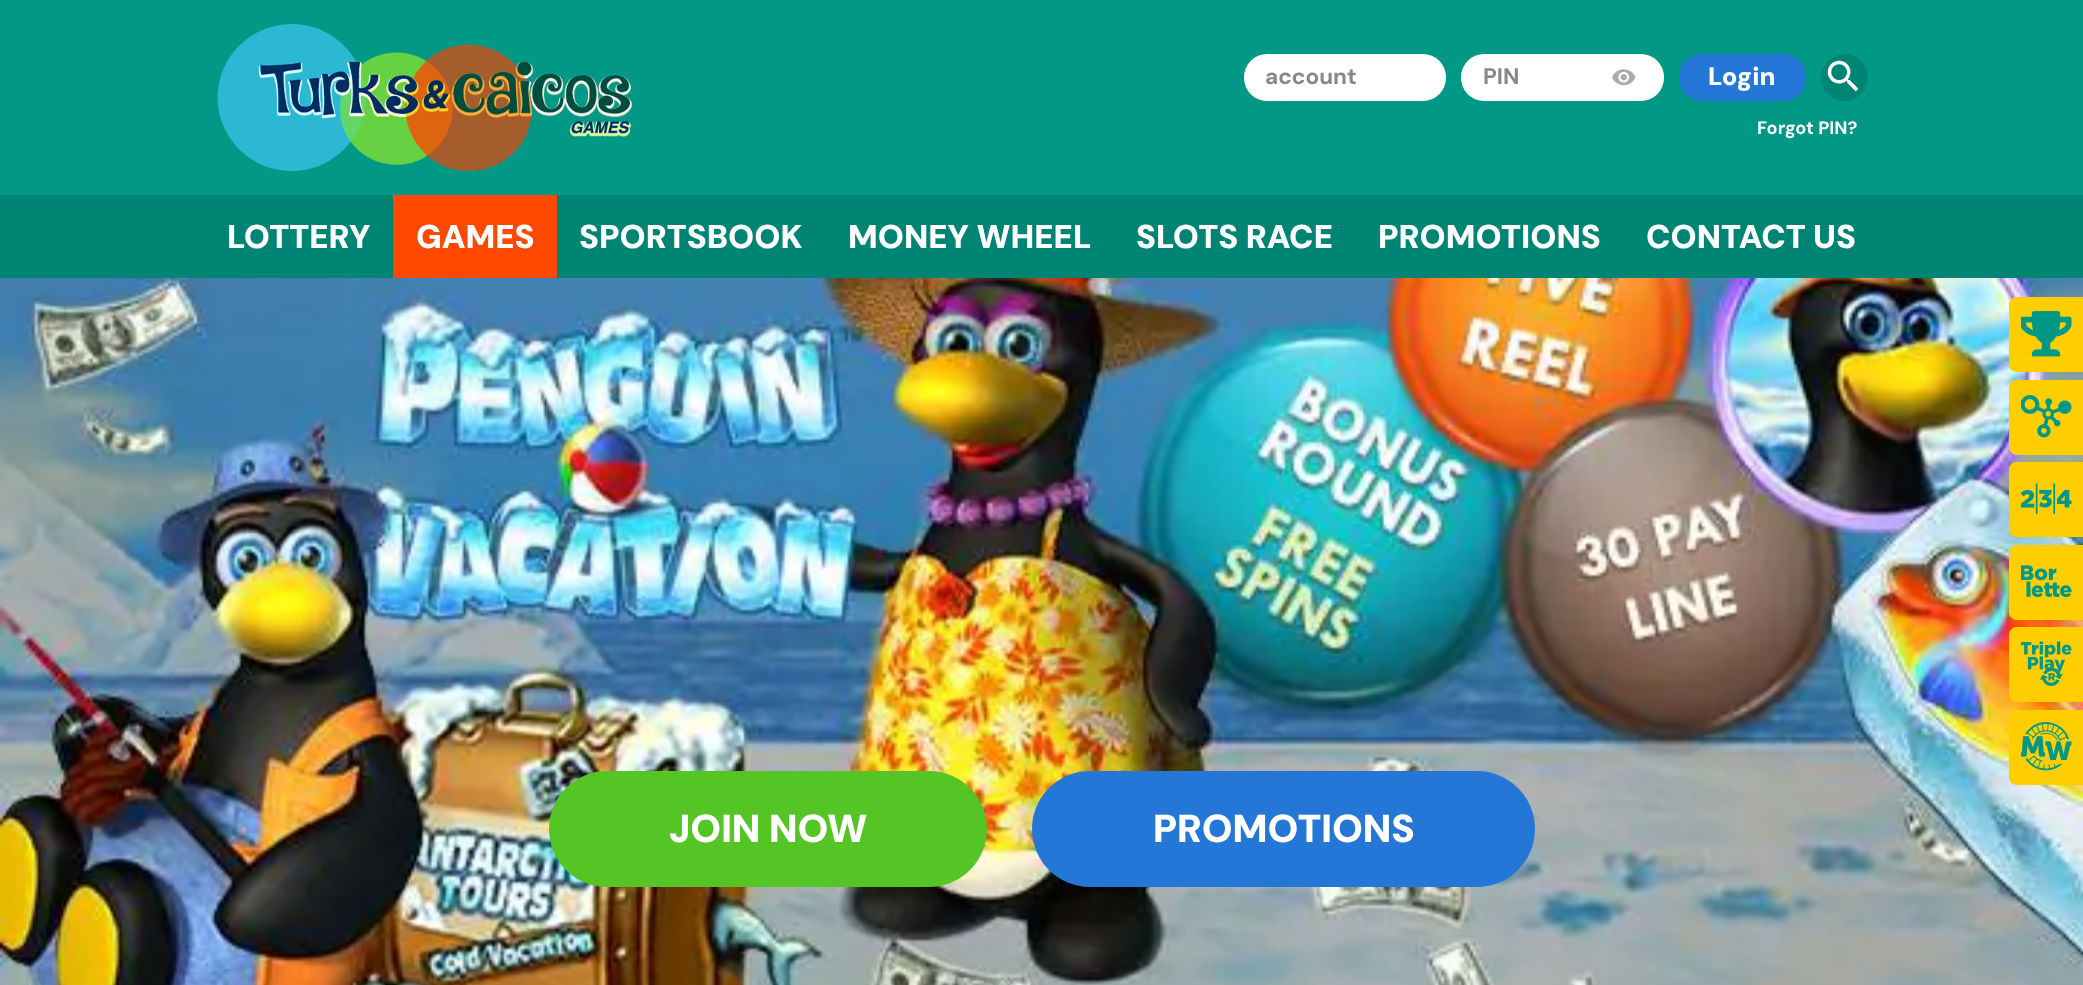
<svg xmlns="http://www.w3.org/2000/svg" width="2083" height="985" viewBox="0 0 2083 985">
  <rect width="100%" height="100%" fill="rgb(1,152,133)"/>
  <image x="217" y="24" width="415" height="147" href="pic1.png"/>
  <rect x="1244" y="54" width="202" height="47" rx="23" fill="rgb(255,255,255)"/>
  <text x="1265" y="84" font-family="DM Sans" font-size="22.5" font-weight="bold" fill="rgb(136,136,136)">account</text>
  <rect x="1461" y="54" width="203" height="47" rx="23" fill="rgb(255,255,255)"/>
  <text x="1483" y="84" font-family="DM Sans" font-size="22.5" font-weight="bold" fill="rgb(136,136,136)">PIN</text>
  <image x="1612" y="69" width="24" height="17" href="pic2.png"/>
  <rect x="1679" y="54" width="127" height="47" rx="23" fill="rgb(36,119,215)"/>
  <text x="1708" y="85" font-family="'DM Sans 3'" font-size="25.5" font-weight="900" fill="rgb(255,255,255)">Login</text>
  <circle cx="1844.5" cy="77.5" r="23.5" fill="rgb(0,133,116)"/>
  <image x="1827" y="60" width="32" height="32" href="pic3.png"/>
  <text x="1757" y="134" font-family="'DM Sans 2'" font-size="18" font-weight="bold" fill="rgb(255,255,255)">Forgot PIN?</text>
  <rect x="0" y="195" width="2083" height="83" fill="rgb(0,133,116)"/>
  <text x="227" y="248" font-family="'DM Sans 2'" font-size="33" font-weight="900" fill="rgb(255,255,255)">LOTTERY</text>
  <rect x="393" y="195" width="164" height="83" fill="rgb(255,72,0)"/>
  <g font-family="'DM Sans 2'" font-size="33" font-weight="900" fill="rgb(255,255,255)">
    <text x="416" y="248">GAMES</text>
    <text x="579" y="248">SPORTSBOOK</text>
    <text x="848" y="248">MONEY WHEEL</text>
    <text x="1136" y="248">SLOTS RACE</text>
    <text x="1378" y="248">PROMOTIONS</text>
    <text x="1646" y="248">CONTACT US</text>
  </g>
  <image x="0" y="278" width="2083" height="707" href="pic4.png"/>
  <rect x="549" y="771" width="438" height="116" rx="58" fill="rgb(84,197,37)"/>
  <text x="669" y="842" font-family="DM Sans" font-size="39" font-weight="900" fill="rgb(255,255,255)">JOIN NOW</text>
  <rect x="1032" y="771" width="503" height="116" rx="58" fill="rgb(36,119,215)"/>
  <text x="1153" y="842" font-family="DM Sans" font-size="39" font-weight="900" fill="rgb(255,255,255)">PROMOTIONS</text>
  <path d="M2017 297H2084V372H2017C2012.5 372 2009 368.5 2009 364V305C2009 300.5 2012.5 297 2017 297Z" fill="rgb(255,206,1)"/>
  <image x="2021" y="311" width="51" height="46" href="pic5.png"/>
  <path d="M2017 380H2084V455H2017C2012.5 455 2009 451.5 2009 447V388C2009 383.5 2012.5 380 2017 380Z" fill="rgb(255,206,1)"/>
  <image x="2021" y="395" width="51" height="43" href="pic6.png"/>
  <path d="M2017 462H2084V537H2017C2012.5 537 2009 533.5 2009 529V470C2009 465.5 2012.5 462 2017 462Z" fill="rgb(255,206,1)"/>
  <image x="2021" y="483" width="51" height="32" href="pic7.png"/>
  <path d="M2017 545H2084V620H2017C2012.5 620 2009 616.5 2009 612V553C2009 548.5 2012.5 545 2017 545Z" fill="rgb(255,206,1)"/>
  <image x="2021" y="565" width="51" height="33" href="pic8.png"/>
  <path d="M2017 627H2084V702H2017C2012.5 702 2009 698.5 2009 694V635C2009 630.5 2012.5 627 2017 627Z" fill="rgb(255,206,1)"/>
  <image x="2021" y="641" width="51" height="45" href="pic9.png"/>
  <path d="M2017 710H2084V785H2017C2012.5 785 2009 781.5 2009 777V718C2009 713.5 2012.5 710 2017 710Z" fill="rgb(255,206,1)"/>
  <image x="2021" y="722" width="51" height="49" href="pic10.png"/>
</svg>
